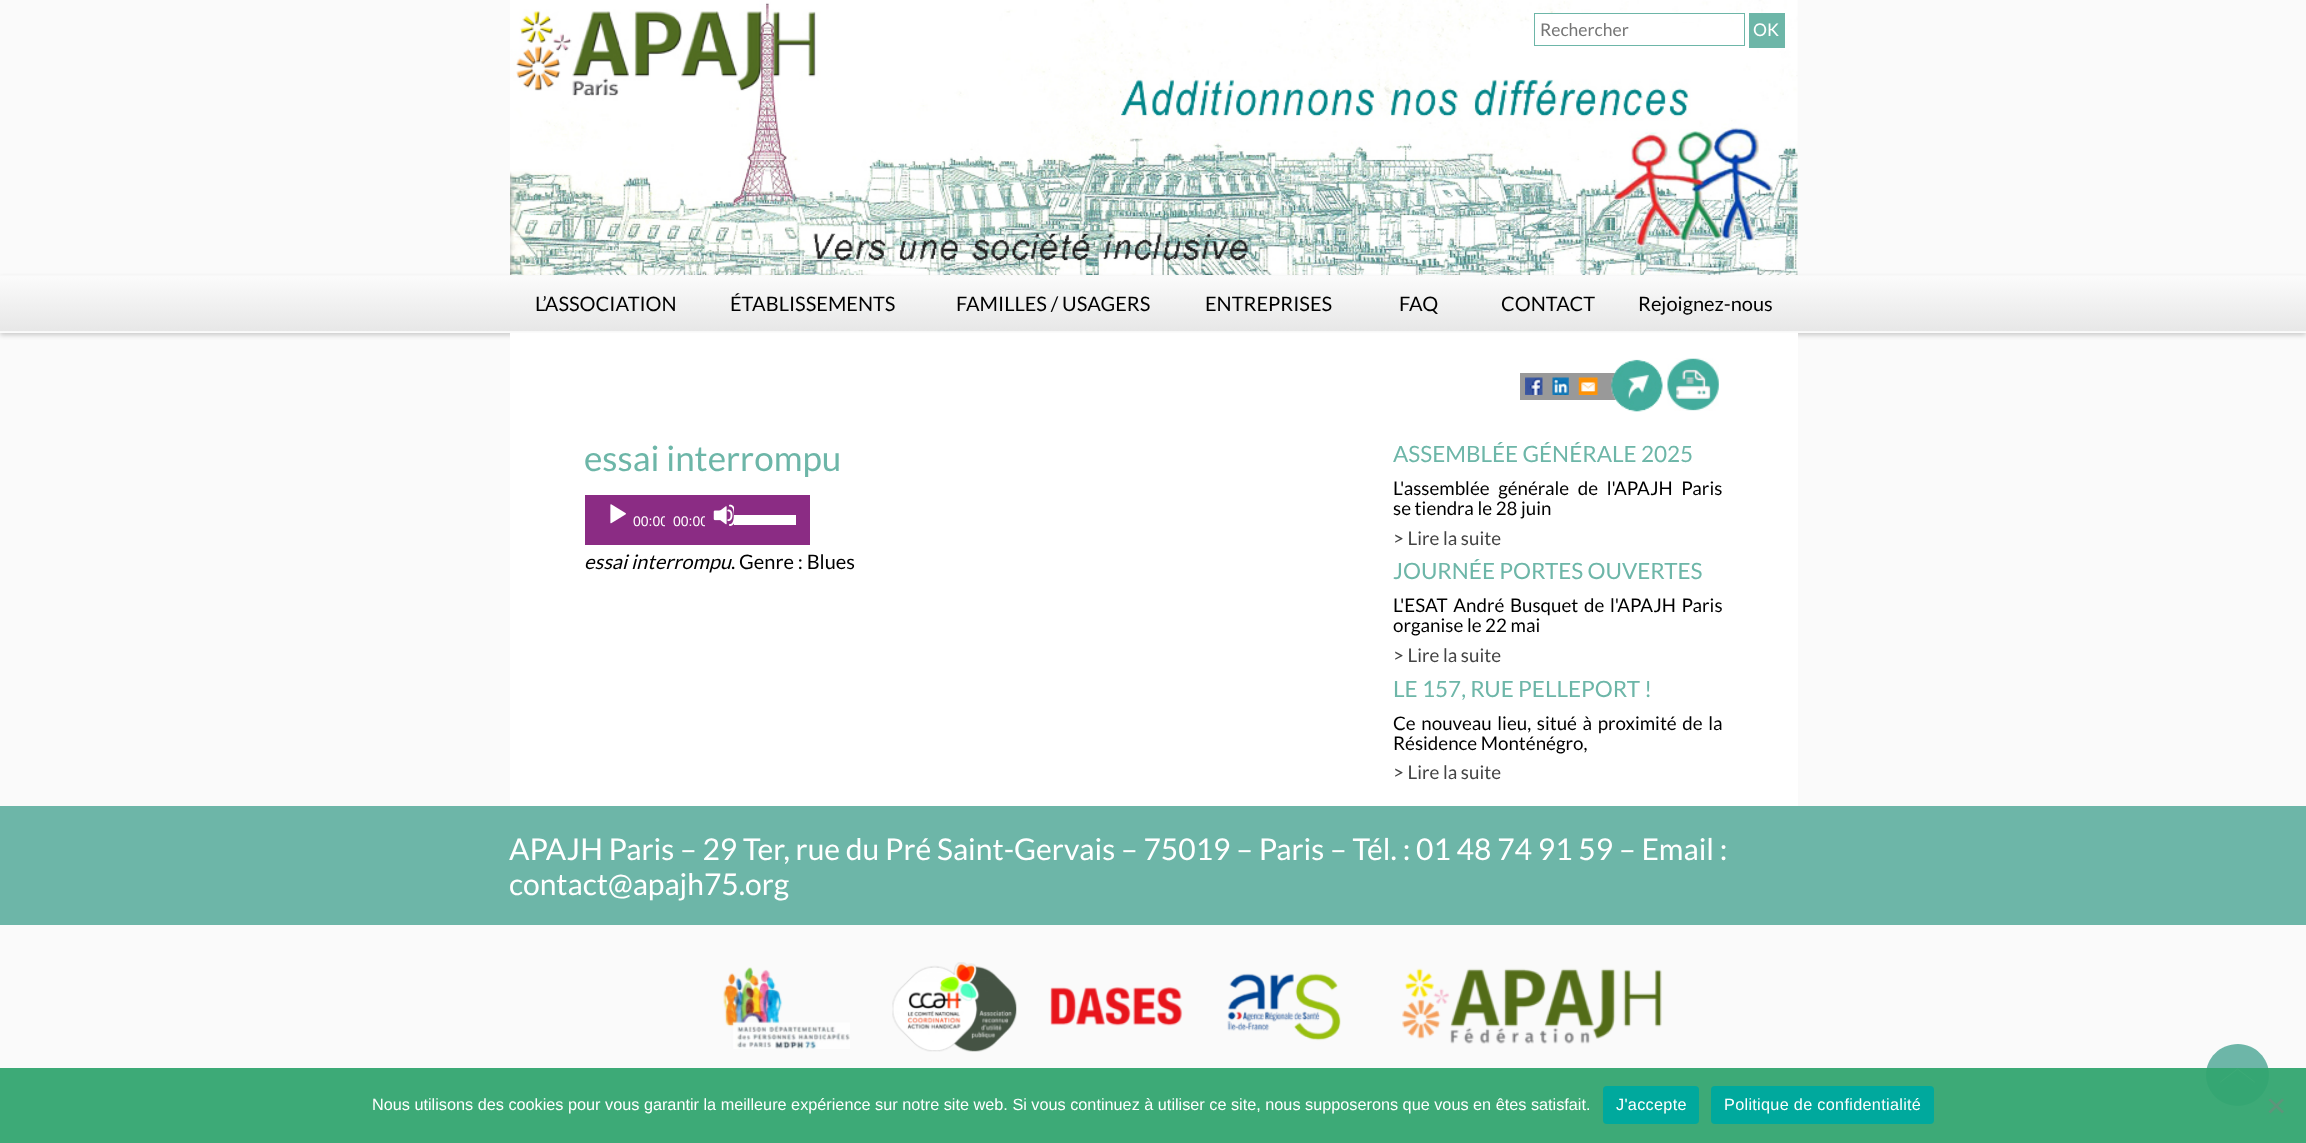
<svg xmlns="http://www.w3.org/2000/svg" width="2306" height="1143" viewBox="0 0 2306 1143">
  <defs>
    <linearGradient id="g1" gradientUnits="userSpaceOnUse" x1="1153" y1="276" x2="1153" y2="331"><stop offset="0" stop-color="rgb(251,251,251)"/><stop offset="1" stop-color="rgb(231,231,231)"/></linearGradient>
    <clipPath id="clip1"><rect x="626" y="495" width="39" height="50"/></clipPath>
    <clipPath id="clip2"><rect x="665" y="495" width="40" height="50"/></clipPath>
  </defs>
  <rect width="100%" height="100%" fill="rgb(250,250,250)"/>
  <image x="510" y="0" width="1288" height="275" href="pic1.png"/>
  <rect x="1540" y="14" width="154" height="8" fill="rgb(255,255,255)"/>
  <rect x="1534.5" y="13.5" width="210" height="32" fill="none" stroke="rgb(109,182,168)"/>
  <text x="1540" y="36" font-family="Lato" font-size="17.5" fill="rgb(117,117,117)">Rechercher</text>
  <rect x="1749" y="13" width="36" height="35" fill="rgb(109,182,168)"/>
  <text x="1753" y="36" font-family="Lato" font-size="17.5" fill="rgb(255,255,255)">OK</text>
  <rect x="0" y="278" width="2306" height="57" fill="rgba(0,0,0,0.2)" filter="blur(2.5px)"/>
  <rect x="0" y="332" width="2306" height="1" fill="rgb(251,251,251)"/>
  <rect x="0" y="276" width="2306" height="55" fill="url(#g1)"/>
  <rect x="0" y="275" width="2306" height="1" fill="rgb(248,248,248)"/>
  <rect x="0" y="331" width="2306" height="1" fill="rgb(248,248,248)"/>
  <g font-family="Lato" font-size="20" fill="rgb(0,0,0)">
    <text x="535" y="311">L’ASSOCIATION</text>
    <text x="730" y="311">ÉTABLISSEMENTS</text>
    <text x="956" y="311">FAMILLES / USAGERS</text>
    <text x="1205" y="311">ENTREPRISES</text>
    <text x="1399" y="311">FAQ</text>
    <text x="1501" y="311">CONTACT</text>
    <text x="1638" y="311">Rejoignez-nous</text>
  </g>
  <rect x="510" y="333" width="1288" height="473" fill="rgb(255,255,255)"/>
  <rect x="1520" y="373" width="97" height="27" fill="rgb(153,153,153)"/>
  <image x="1525" y="377" width="18" height="18" href="pic2.png"/>
  <image x="1552" y="377" width="17" height="18" href="pic3.png"/>
  <image x="1578" y="377" width="20" height="18" href="pic4.png"/>
  <image x="1611" y="359" width="52" height="53" href="pic5.png"/>
  <image x="1667" y="358" width="52" height="53" href="pic6.png"/>
  <text x="584" y="471" font-family="Lato" font-size="35" fill="rgb(109,182,168)">essai interrompu</text>
  <rect x="585" y="495" width="225" height="50" fill="rgb(139,44,132)"/>
  <image x="610" y="504" width="16" height="20" href="pic7.png"/>
  <g clip-path="url(#clip1)">
    <text x="633" y="526" font-family="Liberation Sans" font-size="14" fill="rgb(255,255,255)">00:00</text>
  </g>
  <g clip-path="url(#clip2)">
    <text x="673" y="526" font-family="Liberation Sans" font-size="14" fill="rgb(255,255,255)">00:00</text>
  </g>
  <image x="713" y="504" width="21" height="22" href="pic8.png"/>
  <rect x="734" y="515" width="62" height="10" fill="rgb(255,255,255)"/>
  <text x="584" y="569" font-family="Lato" font-size="20" font-style="italic" fill="rgb(0,0,0)">essai interrompu</text>
  <text x="731" y="569" font-family="Lato" font-size="20" fill="rgb(0,0,0)">. Genre : Blues</text>
  <text x="1393" y="462" font-family="Lato" font-size="22.5" fill="rgb(109,182,168)">ASSEMBLÉE GÉNÉRALE 2025</text>
  <g font-family="Lato" font-size="18.75" fill="rgb(0,0,0)">
    <text>
      <tspan x="1393" y="495" word-spacing="5">L'assemblée générale de l'APAJH Paris</tspan>
      <tspan x="1393" y="515">se tiendra le 28 juin</tspan>
    </text>
  </g>
  <text x="1393" y="545" font-family="Lato" font-size="18.75" fill="rgb(68,68,68)">&gt; Lire la suite</text>
  <text x="1393" y="579" font-family="Lato" font-size="22.5" fill="rgb(109,182,168)">JOURNÉE PORTES OUVERTES</text>
  <g font-family="Lato" font-size="18.75" fill="rgb(0,0,0)">
    <text>
      <tspan x="1393" y="612" word-spacing="2">L'ESAT André Busquet de l'APAJH Paris</tspan>
      <tspan x="1393" y="632">organise le 22 mai</tspan>
    </text>
  </g>
  <text x="1393" y="662" font-family="Lato" font-size="18.75" fill="rgb(68,68,68)">&gt; Lire la suite</text>
  <text x="1393" y="697" font-family="Lato" font-size="22.5" fill="rgb(109,182,168)">LE 157, RUE PELLEPORT !</text>
  <g font-family="Lato" font-size="18.75" fill="rgb(0,0,0)">
    <text>
      <tspan x="1393" y="730" word-spacing="2">Ce nouveau lieu, situé à proximité de la</tspan>
      <tspan x="1393" y="750">Résidence Monténégro,</tspan>
    </text>
  </g>
  <text x="1393" y="779" font-family="Lato" font-size="18.75" fill="rgb(68,68,68)">&gt; Lire la suite</text>
  <rect x="0" y="806" width="2306" height="119" fill="rgb(109,182,168)"/>
  <g font-family="Lato" font-size="30" fill="rgb(255,255,255)">
    <text>
      <tspan x="509" y="860">APAJH Paris – 29 Ter, rue du Pré Saint-Gervais – 75019 – Paris – Tél. : 01 48 74 91 59 – Email :</tspan>
      <tspan x="509" y="895">contact@apajh75.org</tspan>
    </text>
  </g>
  <image x="723" y="967" width="127" height="82" href="pic9.png"/>
  <image x="892" y="962" width="125" height="90" href="pic10.png"/>
  <image x="1050" y="987" width="133" height="39" href="pic11.png"/>
  <image x="1227" y="973" width="114" height="68" href="pic12.png"/>
  <image x="1402" y="968" width="260" height="76" href="pic13.png"/>
  <path d="M2206 1075C2206 1058 2220 1044 2238 1044C2255 1044 2269 1058 2269 1075C2269 1092 2255 1106 2238 1106C2220 1106 2206 1092 2206 1075Z" fill="rgb(109,182,168)"/>
  <path d="M2220.5 1082L2237.5 1069L2254.5 1082" fill="none" stroke="rgb(255,255,255)" stroke-width="0.8" stroke-linecap="round"/>
  <rect x="0" y="1068" width="2306" height="75" fill="rgba(51,165,112,0.95)"/>
  <text x="372" y="1110" font-family="Liberation Sans" font-size="16.25" fill="rgb(255,255,255)">Nous utilisons des cookies pour vous garantir la meilleure expérience sur notre site web. Si vous continuez à utiliser ce site, nous supposerons que vous en êtes satisfait.</text>
  <rect x="1603" y="1086" width="96" height="38" rx="4" fill="rgb(0,169,157)"/>
  <text x="1616" y="1110" font-family="Liberation Sans" font-size="16.25" letter-spacing="0.3" fill="rgb(255,255,255)">J'accepte</text>
  <rect x="1711" y="1086" width="223" height="38" rx="4" fill="rgb(0,169,157)"/>
  <text x="1724" y="1110" font-family="Liberation Sans" font-size="16.25" letter-spacing="0.3" fill="rgb(255,255,255)">Politique de confidentialité</text>
  <path d="M2282 1098.5L2284 1100L2270.5 1113.5L2268.5 1111.5Z" fill="rgb(94,149,123)"/>
  <path d="M2268.5 1100L2270.5 1098.5L2284 1111.5L2282 1113.5Z" fill="rgb(94,149,123)"/>
</svg>
